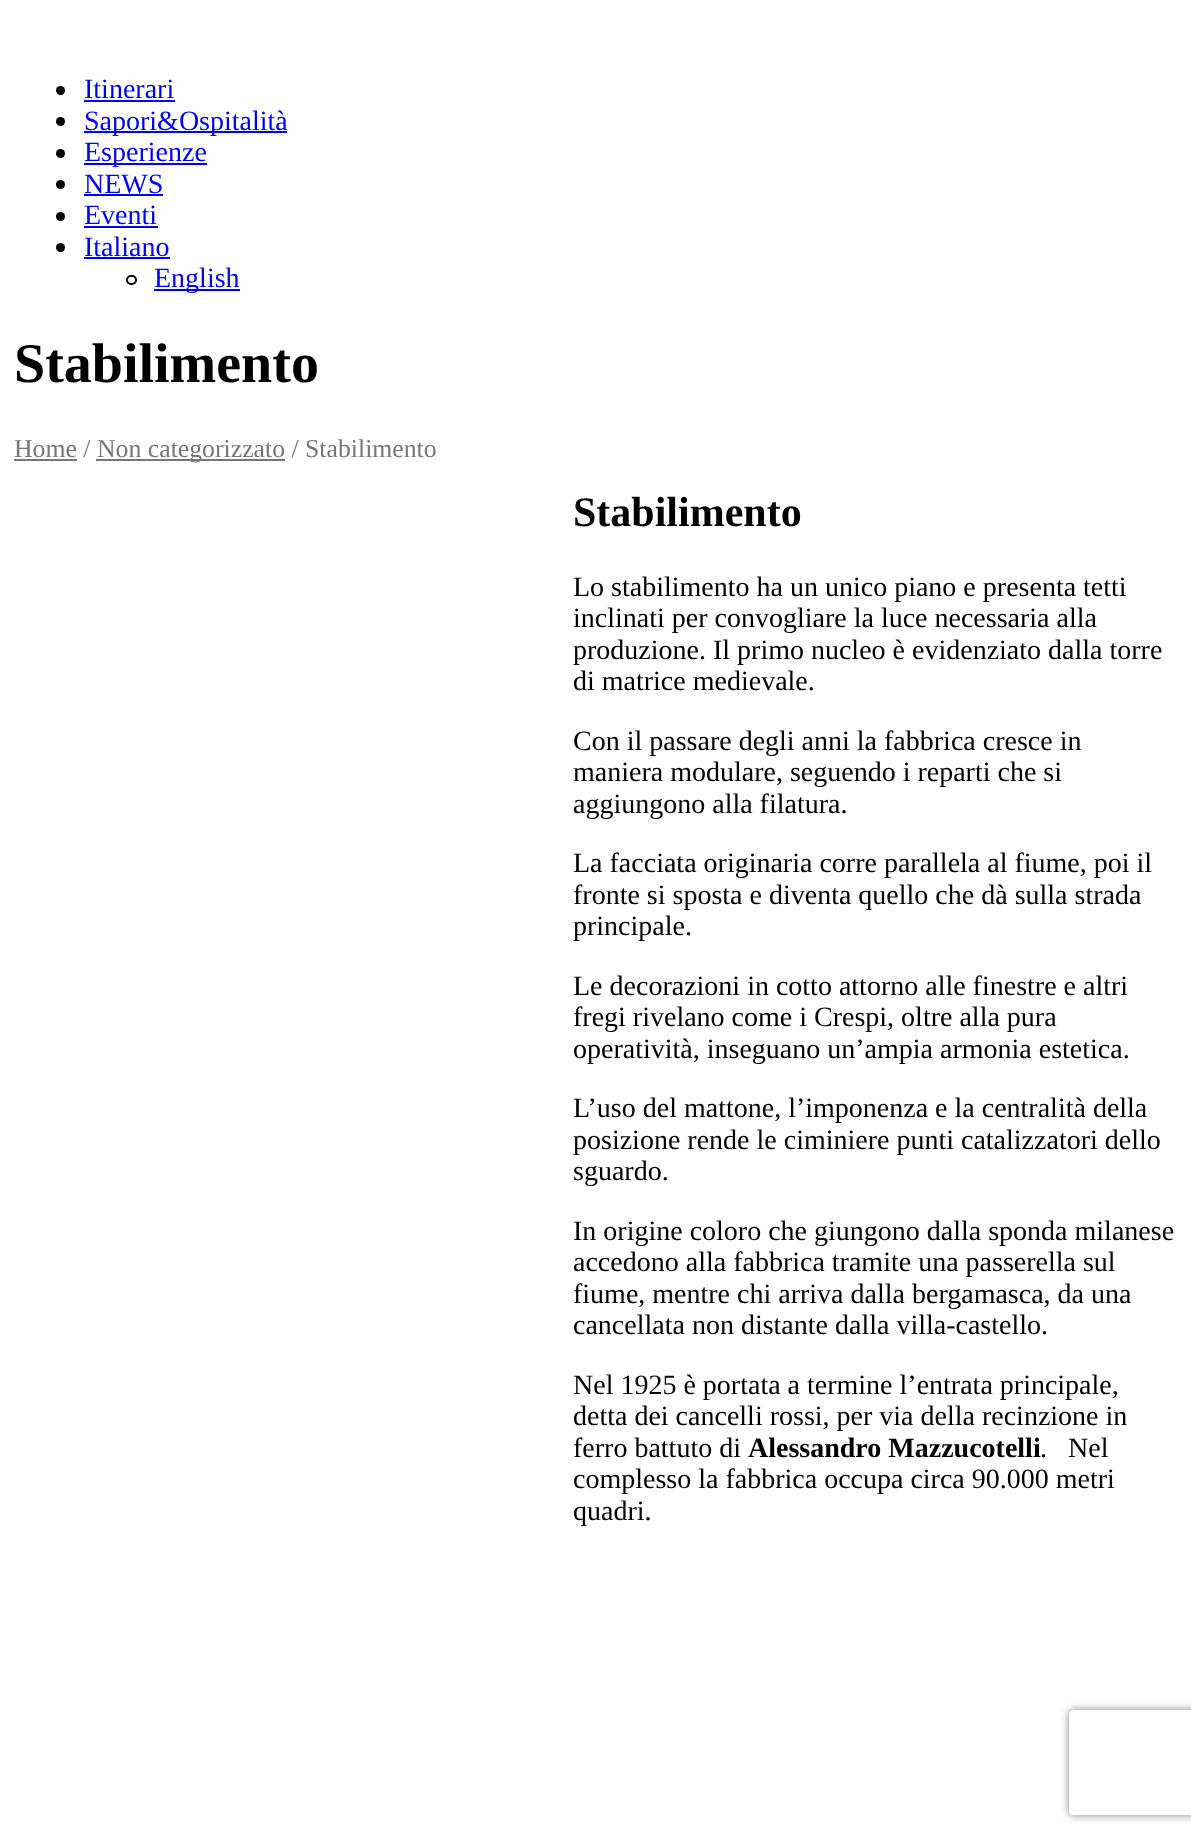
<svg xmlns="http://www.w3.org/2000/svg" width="1191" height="1838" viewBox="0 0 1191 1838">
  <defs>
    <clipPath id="clip1"><path d="M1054 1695H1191V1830H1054ZM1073 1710H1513C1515 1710 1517 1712 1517 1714V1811C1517 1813 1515 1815 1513 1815H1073C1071 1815 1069 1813 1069 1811V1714C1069 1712 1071 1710 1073 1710Z" clip-rule="evenodd"/></clipPath>
  </defs>
  <rect width="100%" height="100%" fill="rgb(255,255,255)"/>
  <circle cx="60.5" cy="90.5" r="4.5" fill="rgb(0,0,0)"/>
  <text x="84" y="98" font-family="Liberation Serif" font-size="28" fill="rgb(0,0,238)">Itinerari</text>
  <rect x="84" y="100" width="91" height="2" fill="rgb(0,0,238)"/>
  <circle cx="60.5" cy="121.5" r="4.5" fill="rgb(0,0,0)"/>
  <rect x="84" y="131" width="203" height="2" fill="rgb(0,0,238)"/>
  <text x="84" y="130" font-family="Liberation Serif" font-size="28" fill="rgb(0,0,238)">Sapori&amp;Ospitalità</text>
  <circle cx="60.5" cy="153.5" r="4.5" fill="rgb(0,0,0)"/>
  <rect x="84" y="163" width="123" height="2" fill="rgb(0,0,238)"/>
  <text x="84" y="161" font-family="Liberation Serif" font-size="28" fill="rgb(0,0,238)">Esperienze</text>
  <circle cx="60.5" cy="184.5" r="4.5" fill="rgb(0,0,0)"/>
  <text x="84" y="193" font-family="Liberation Serif" font-size="28" fill="rgb(0,0,238)">NEWS</text>
  <rect x="84" y="194" width="79" height="2" fill="rgb(0,0,238)"/>
  <circle cx="60.5" cy="216.5" r="4.5" fill="rgb(0,0,0)"/>
  <text x="84" y="224" font-family="Liberation Serif" font-size="28" fill="rgb(0,0,238)">Eventi</text>
  <rect x="84" y="226" width="74" height="2" fill="rgb(0,0,238)"/>
  <circle cx="60.5" cy="247.5" r="4.5" fill="rgb(0,0,0)"/>
  <text x="84" y="256" font-family="Liberation Serif" font-size="28" fill="rgb(0,0,238)">Italiano</text>
  <rect x="84" y="257" width="86" height="2" fill="rgb(0,0,238)"/>
  <rect x="127" y="276" width="9" height="8" rx="4" fill="none" stroke="rgb(0,0,0)" stroke-width="2"/>
  <rect x="154" y="289" width="86" height="2" fill="rgb(0,0,238)"/>
  <text x="154" y="287" font-family="Liberation Serif" font-size="28" fill="rgb(0,0,238)">English</text>
  <text x="14" y="382" font-family="Liberation Serif" font-size="56" font-weight="bold" fill="rgb(0,0,0)">Stabilimento</text>
  <text x="14" y="457" font-family="Liberation Serif" font-size="25.75" fill="rgb(118,118,118)">Home /</text>
  <rect x="14" y="459" width="63" height="2" fill="rgb(118,118,118)"/>
  <rect x="96" y="459" width="189" height="2" fill="rgb(118,118,118)"/>
  <text x="97" y="457" font-family="Liberation Serif" font-size="25.75" fill="rgb(118,118,118)">Non categorizzato / Stabilimento</text>
  <text x="573" y="526" font-family="Liberation Serif" font-size="42" font-weight="bold" fill="rgb(0,0,0)">Stabilimento</text>
  <g font-family="Liberation Serif" font-size="28" fill="rgb(0,0,0)">
    <text>
      <tspan x="573" y="596">Lo stabilimento ha un unico piano e presenta tetti</tspan>
      <tspan x="573" y="627">inclinati per convogliare la luce necessaria alla</tspan>
      <tspan x="573" y="659">produzione. Il primo nucleo è evidenziato dalla torre</tspan>
      <tspan x="573" y="690">di matrice medievale.</tspan>
    </text>
    <text>
      <tspan x="573" y="750">Con il passare degli anni la fabbrica cresce in</tspan>
      <tspan x="573" y="781">maniera modulare, seguendo i reparti che si</tspan>
      <tspan x="573" y="813">aggiungono alla filatura.</tspan>
    </text>
    <text>
      <tspan x="573" y="872">La facciata originaria corre parallela al fiume, poi il</tspan>
      <tspan x="573" y="904">fronte si sposta e diventa quello che dà sulla strada</tspan>
      <tspan x="573" y="935">principale.</tspan>
    </text>
    <text>
      <tspan x="573" y="995">Le decorazioni in cotto attorno alle finestre e altri</tspan>
      <tspan x="573" y="1026">fregi rivelano come i Crespi, oltre alla pura</tspan>
      <tspan x="573" y="1058">operatività, inseguano un’ampia armonia estetica.</tspan>
    </text>
    <text>
      <tspan x="573" y="1117">L’uso del mattone, l’imponenza e la centralità della</tspan>
      <tspan x="573" y="1149">posizione rende le ciminiere punti catalizzatori dello</tspan>
      <tspan x="573" y="1180">sguardo.</tspan>
    </text>
    <text>
      <tspan x="573" y="1240">In origine coloro che giungono dalla sponda milanese</tspan>
      <tspan x="573" y="1271">accedono alla fabbrica tramite una passerella sul</tspan>
      <tspan x="573" y="1303">fiume, mentre chi arriva dalla bergamasca, da una</tspan>
      <tspan x="573" y="1334">cancellata non distante dalla villa-castello.</tspan>
    </text>
    <text>
      <tspan x="573" y="1394">Nel 1925 è portata a termine l’entrata principale,</tspan>
      <tspan x="573" y="1425">detta dei cancelli rossi, per via della recinzione in</tspan>
      <tspan x="573" y="1457">ferro battuto di</tspan>
    </text>
  </g>
  <text x="748" y="1457" font-family="Liberation Serif" font-size="28" font-weight="bold" fill="rgb(0,0,0)">Alessandro Mazzucotelli</text>
  <g font-family="Liberation Serif" font-size="28" fill="rgb(0,0,0)">
    <text x="1040" y="1457" xml:space="preserve">.   Nel</text>
    <text>
      <tspan x="573" y="1488">complesso la fabbrica occupa circa 90.000 metri</tspan>
      <tspan x="573" y="1520">quadri.</tspan>
    </text>
  </g>
  <g clip-path="url(#clip1)">
    <rect x="1069" y="1710" width="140" height="105" rx="4" fill="rgb(128,128,128)" filter="blur(4.5px)"/>
  </g>
</svg>
